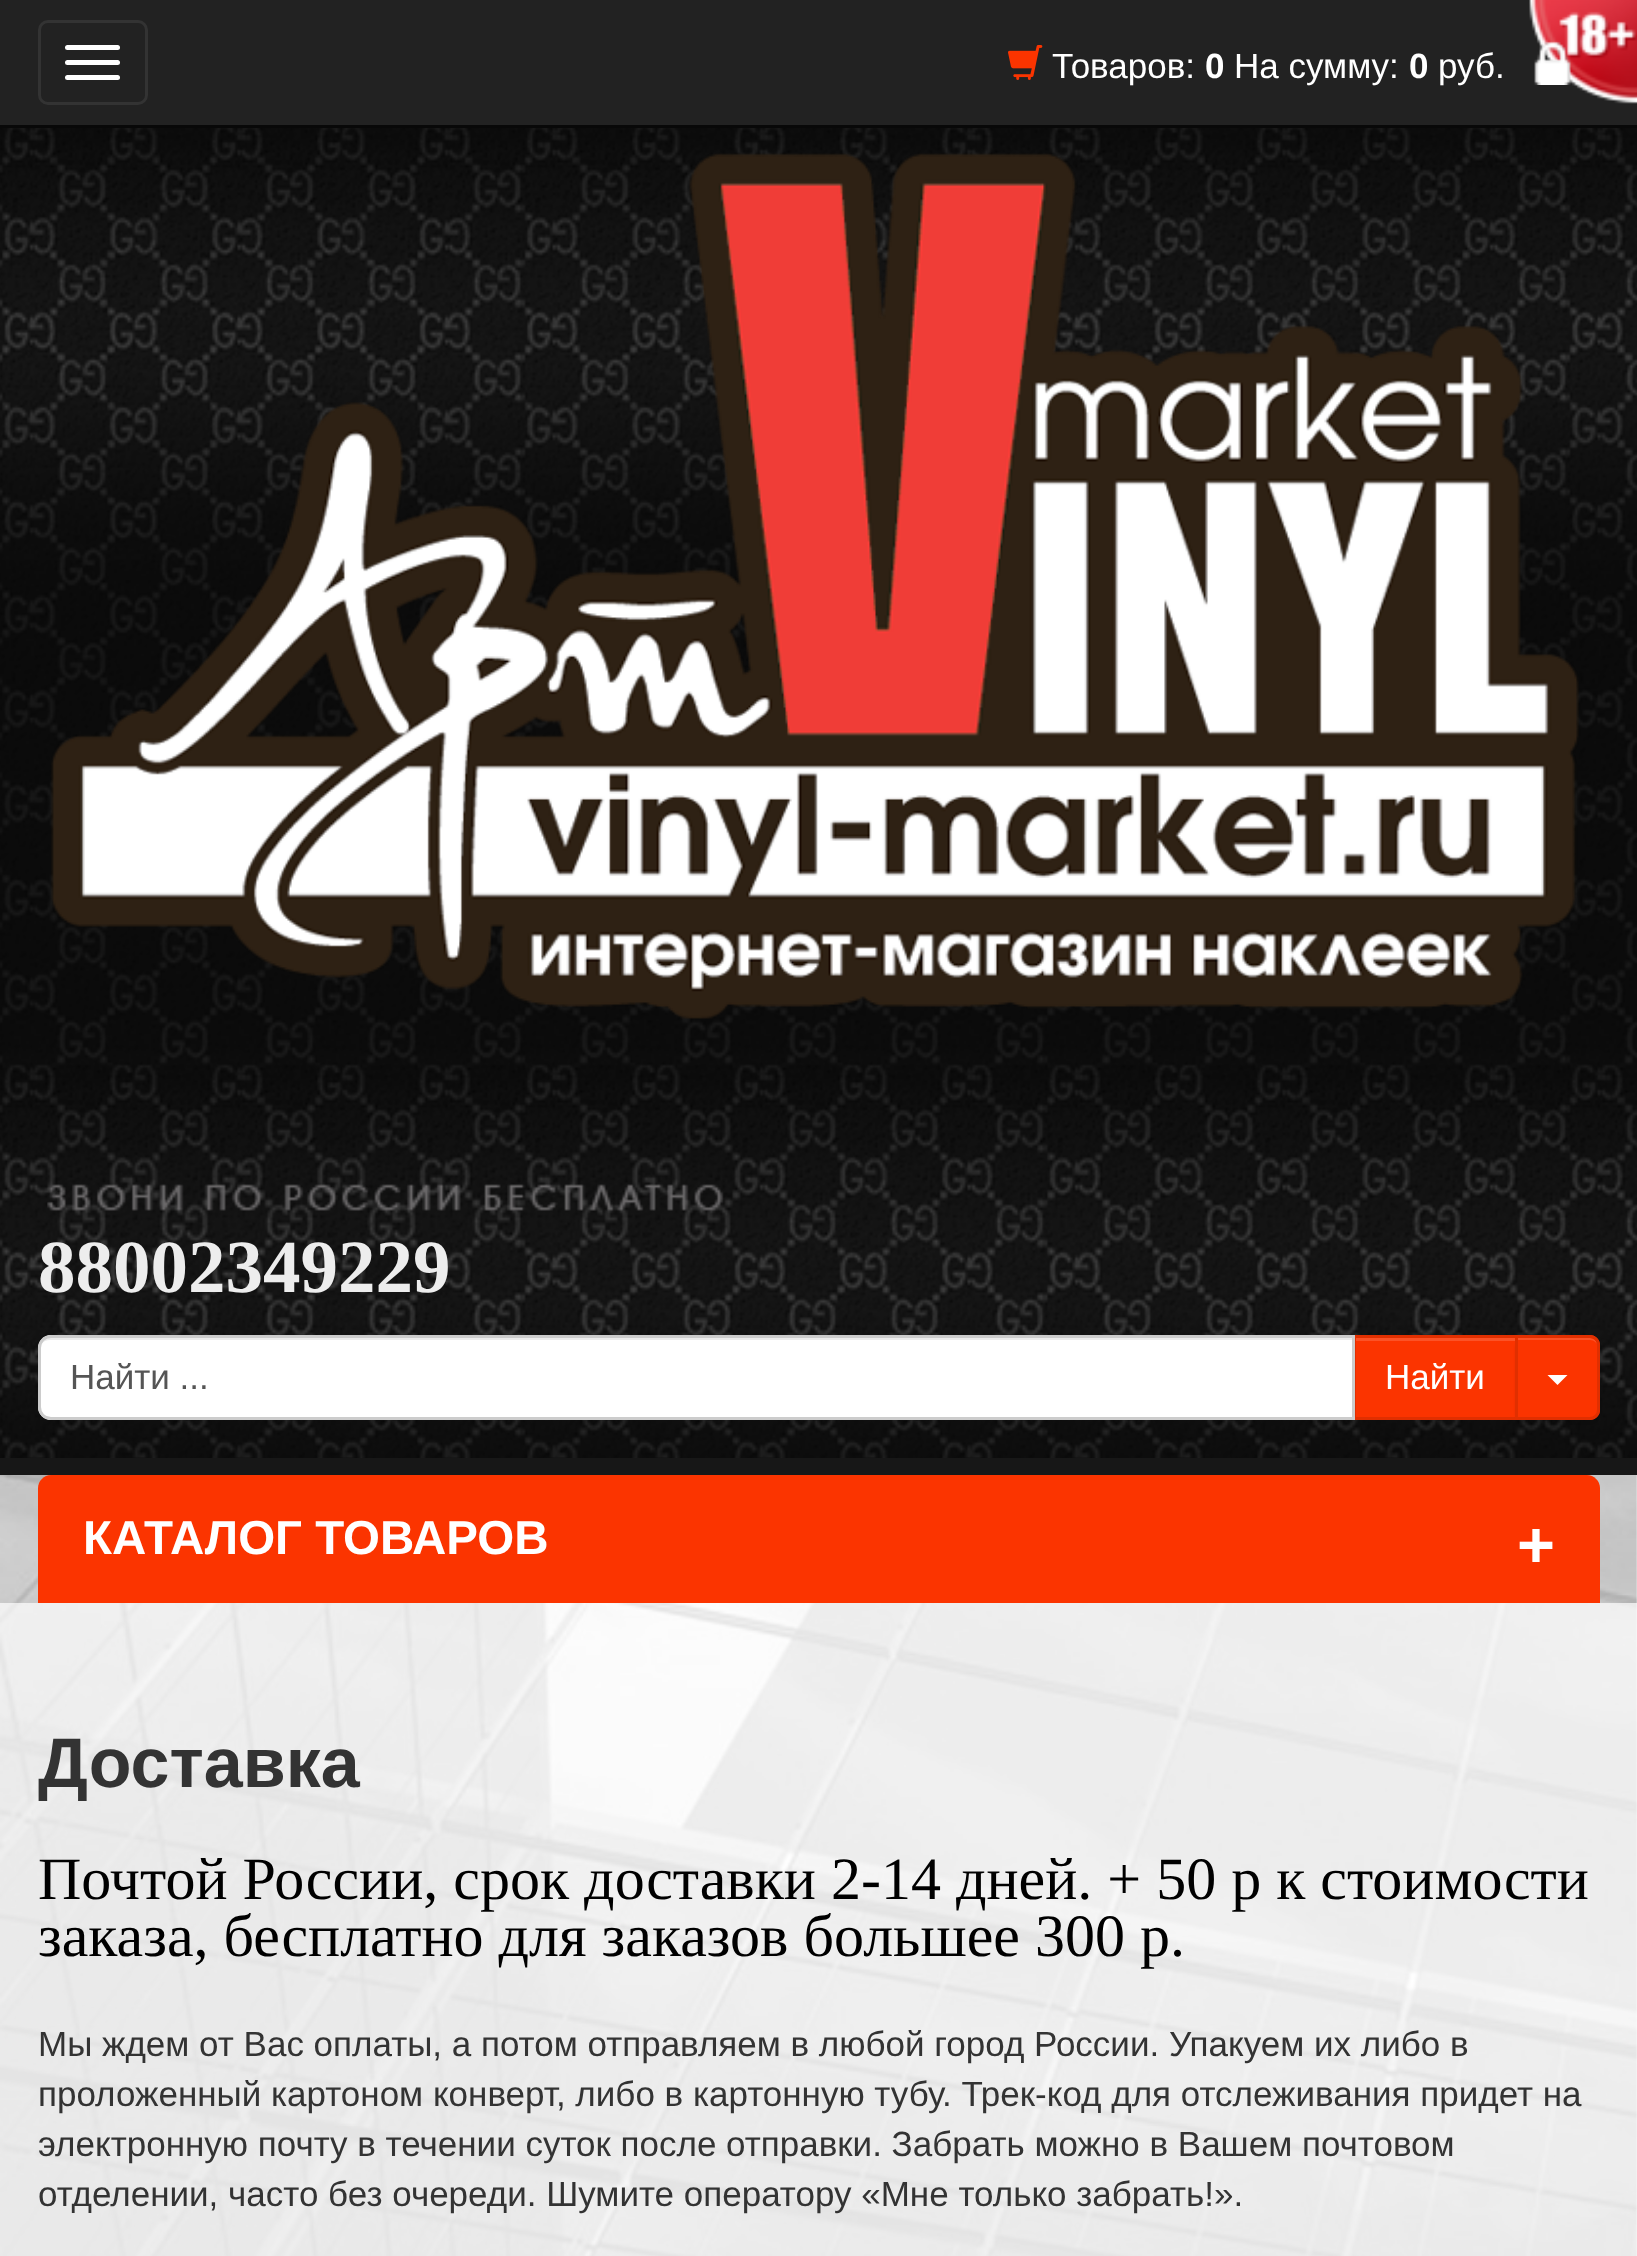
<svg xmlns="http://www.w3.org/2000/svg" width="1637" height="2256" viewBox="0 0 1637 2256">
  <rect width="100%" height="100%" fill="rgb(255,255,255)"/>
  <image x="0" y="1475" width="1637" height="781" href="pic1.png"/>
  <rect x="0" y="0" width="1637" height="125" fill="rgb(34,34,34)"/>
  <image x="1529" y="0" width="108" height="104" href="pic2.png"/>
  <rect x="0" y="125" width="1637" height="3" fill="rgb(8,8,8)"/>
  <rect x="39.5" y="21.5" width="107" height="82" rx="8.5" fill="none" stroke="rgb(51,51,51)" stroke-width="3"/>
  <rect x="65" y="45" width="55" height="5" rx="2.5" fill="rgb(255,255,255)"/>
  <rect x="65" y="60" width="55" height="5" rx="2.5" fill="rgb(255,255,255)"/>
  <rect x="65" y="75" width="55" height="5" rx="2.5" fill="rgb(255,255,255)"/>
  <image x="1008" y="45" width="35" height="35" href="pic3.png"/>
  <text x="1052" y="78" font-family="Liberation Sans" font-size="35" fill="rgb(255,255,255)">Товаров:</text>
  <text x="1205" y="78" font-family="Liberation Sans" font-size="35" font-weight="bold" fill="rgb(255,255,255)">0</text>
  <text x="1234" y="78" font-family="Liberation Sans" font-size="35" fill="rgb(255,255,255)">На сумму:</text>
  <text x="1409" y="78" font-family="Liberation Sans" font-size="35" font-weight="bold" fill="rgb(255,255,255)">0</text>
  <text x="1438" y="78" font-family="Liberation Sans" font-size="35" fill="rgb(255,255,255)">руб.</text>
  <image x="1534" y="41" width="37" height="44" href="pic4.png"/>
  <image x="0" y="128" width="1637" height="1330" href="pic5.png"/>
  <rect x="0" y="1458" width="1637" height="17" fill="rgb(23,23,23)"/>
  <image x="51" y="153" width="1528" height="866" href="pic6.png"/>
  <image x="47" y="1184" width="677" height="27" href="pic7.png"/>
  <text x="38" y="1292" font-family="Liberation Serif" font-size="75" font-weight="bold" fill="rgb(237,237,237)">88002349229</text>
  <rect x="1356" y="1341" width="159" height="76" fill="rgb(251,52,0)"/>
  <rect x="1355" y="1338" width="160" height="3" fill="rgb(252,82,38)"/>
  <rect x="1354.5" y="1336.5" width="162" height="82" fill="none" stroke="rgb(225,47,0)" stroke-width="3"/>
  <path d="M51 1335H1355V1420H51C44 1420 38 1414 38 1407V1348C38 1341 44 1335 51 1335Z" fill="rgb(255,255,255)"/>
  <path d="M50 1340H1352V1418H1353V1338H50C43 1338 40 1344 40 1350C40 1344 44 1340 50 1340Z" fill="rgb(236,236,236)"/>
  <path d="M51 1336.5H1353.5V1418.5H51C44.5 1418.5 39.5 1413.5 39.5 1407V1348C39.5 1341.5 44.5 1336.5 51 1336.5Z" fill="none" stroke="rgb(204,204,204)" stroke-width="3"/>
  <text x="70" y="1389" font-family="Liberation Sans" font-size="35" fill="rgb(85,85,85)">Найти ...</text>
  <text x="1385" y="1389" font-family="Liberation Sans" font-size="35" fill="rgb(255,255,255)">Найти</text>
  <rect x="1515" y="1338" width="85" height="85" rx="10" fill="rgba(0,0,0,0.07)" filter="blur(1px)"/>
  <path d="M1515 1335H1590C1595.5 1335 1600 1339.5 1600 1345V1410C1600 1415.5 1595.5 1420 1590 1420H1515Z" fill="rgb(251,52,0)"/>
  <path d="M1518 1340H1590C1594 1340 1598 1343 1598 1348V1346C1598 1342 1594 1338 1590 1338H1518Z" fill="rgb(252,82,38)"/>
  <path d="M1516.5 1336.5H1590C1594.5 1336.5 1598.5 1340.5 1598.5 1345V1410C1598.5 1414.5 1594.5 1418.5 1590 1418.5H1516.5Z" fill="none" stroke="rgb(225,47,0)" stroke-width="3"/>
  <path d="M1547.5 1375H1567.5L1557.5 1385Z" fill="rgb(255,255,255)"/>
  <path d="M51 1475H1587C1594 1475 1600 1481 1600 1488V1603H38V1488C38 1481 44 1475 51 1475Z" fill="rgb(251,52,0)"/>
  <text x="83" y="1554" font-family="Liberation Sans" font-size="47.5" font-weight="bold" fill="rgb(255,255,255)">КАТАЛОГ ТОВАРОВ</text>
  <text x="1517" y="1567" font-family="Liberation Sans" font-size="65" font-weight="bold" fill="rgb(255,255,255)">+</text>
  <rect x="0" y="1603" width="1637" height="653" fill="rgba(255,255,255,0.7)"/>
  <text x="38" y="1787" font-family="Liberation Sans" font-size="70" font-weight="bold" fill="rgb(51,51,51)">Доставка</text>
  <g font-family="Liberation Serif" font-size="60" fill="rgb(0,0,0)">
    <text>
      <tspan x="38" y="1899">Почтой России, срок доставки 2-14 дней. + 50 р к стоимости</tspan>
      <tspan x="38" y="1956">заказа, бесплатно для заказов большее 300 р.</tspan>
    </text>
  </g>
  <g font-family="Liberation Sans" font-size="35" fill="rgb(51,51,51)">
    <text>
      <tspan x="38" y="2056">Мы ждем от Вас оплаты, а потом отправляем в любой город России. Упакуем их либо в</tspan>
      <tspan x="38" y="2106">проложенный картоном конверт, либо в картонную тубу. Трек-код для отслеживания придет на</tspan>
      <tspan x="38" y="2156">электронную почту в течении суток после отправки. Забрать можно в Вашем почтовом</tspan>
      <tspan x="38" y="2206">отделении, часто без очереди. Шумите оператору «Мне только забрать!».</tspan>
    </text>
  </g>
</svg>
